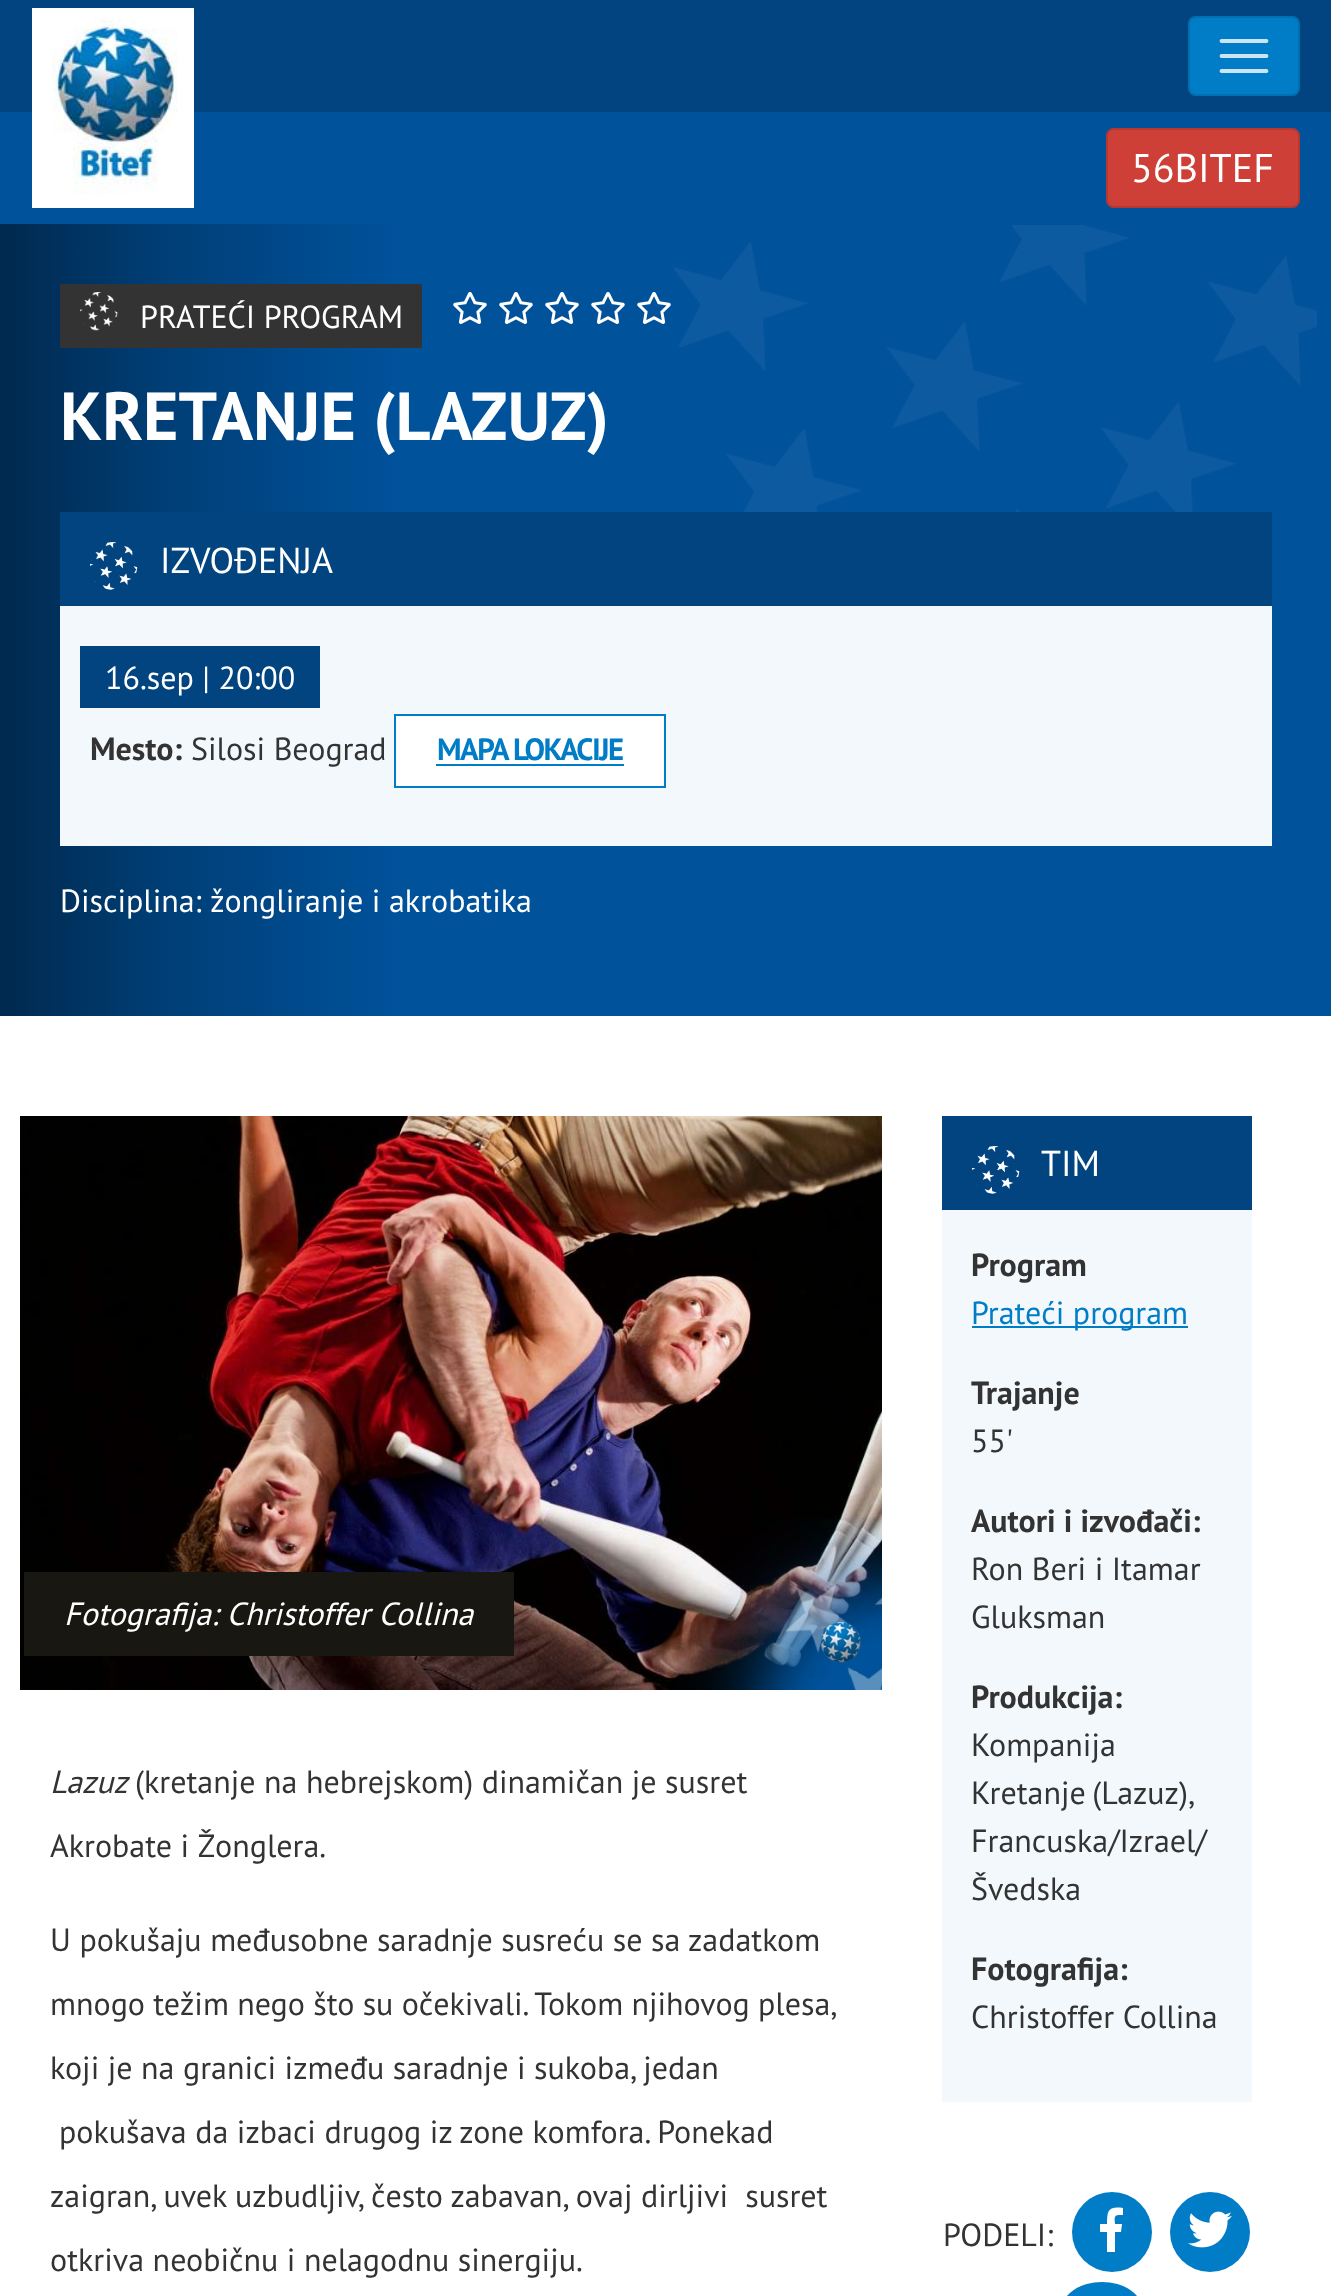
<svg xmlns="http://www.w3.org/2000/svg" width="1331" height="2296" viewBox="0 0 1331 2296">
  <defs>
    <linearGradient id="g1" gradientUnits="userSpaceOnUse" x1="400" y1="620" x2="0" y2="620"><stop offset="0" stop-color="rgb(0,82,156)"/><stop offset="0.6" stop-color="rgb(0,62,117)"/><stop offset="1" stop-color="rgb(0,41,78)"/></linearGradient>
  </defs>
  <rect width="100%" height="100%" fill="rgb(255,255,255)"/>
  <rect x="0" y="0" width="1331" height="112" fill="rgb(1,68,127)"/>
  <rect x="1188" y="16" width="112" height="80" rx="8" fill="rgb(0,125,198)"/>
  <rect x="1189" y="17" width="110" height="78" rx="7" fill="none" stroke="rgba(0,0,0,0.1)" stroke-width="2"/>
  <path d="M1221.5 41H1266.5M1221.5 56H1266.5M1221.5 71H1266.5" fill="none" stroke="rgb(204,229,244)" stroke-width="3.8" stroke-linecap="round"/>
  <rect x="0" y="112" width="1331" height="112" fill="rgb(0,82,155)"/>
  <rect x="32" y="8" width="162" height="200" fill="rgb(255,255,255)"/>
  <image x="52" y="18" width="126" height="177" href="pic1.png"/>
  <rect x="1106" y="128" width="194" height="80" rx="8" fill="rgb(205,63,55)"/>
  <rect x="1107" y="129" width="192" height="78" rx="7" fill="none" stroke="rgba(0,0,0,0.1)" stroke-width="2"/>
  <text x="1131" y="182" font-family="PT Sans" font-size="40" fill="rgb(255,255,255)">56BITEF</text>
  <rect x="400" y="224" width="931" height="792" fill="rgb(0,82,155)"/>
  <image x="673" y="225" width="644" height="287" href="pic2.png"/>
  <rect x="0" y="224" width="400" height="792" fill="url(#g1)"/>
  <rect x="60" y="284" width="362" height="64" fill="rgb(51,51,51)"/>
  <image x="80" y="292" width="38" height="39" href="pic3.png"/>
  <text x="140" y="328" font-family="PT Sans" font-size="32" fill="rgb(255,255,255)">PRATEĆI PROGRAM</text>
  <image x="453" y="292" width="34" height="32" href="pic4.png"/>
  <image x="499" y="292" width="34" height="32" href="pic4.png"/>
  <image x="545" y="292" width="34" height="32" href="pic4.png"/>
  <image x="591" y="292" width="34" height="32" href="pic4.png"/>
  <image x="637" y="292" width="34" height="32" href="pic4.png"/>
  <text x="60" y="440" font-family="PT Sans" font-size="68" font-weight="bold" fill="rgb(255,255,255)">KRETANJE (LAZUZ)</text>
  <rect x="60" y="512" width="1212" height="94" fill="rgb(1,68,127)"/>
  <image x="90" y="542" width="48" height="48" href="pic5.png"/>
  <text x="160" y="573" font-family="PT Sans" font-size="36" fill="rgb(255,255,255)">IZVOĐENJA</text>
  <rect x="60" y="606" width="1212" height="240" fill="rgb(242,248,252)"/>
  <rect x="80" y="646" width="240" height="62" fill="rgb(1,68,127)"/>
  <text x="105" y="689" font-family="PT Sans" font-size="32" fill="rgb(255,255,255)">16.sep | 20:00</text>
  <text x="90" y="760" font-family="PT Sans" font-size="32" font-weight="bold" fill="rgb(51,51,51)">Mesto:</text>
  <text x="191" y="760" font-family="PT Sans" font-size="32" fill="rgb(51,51,51)">Silosi Beograd</text>
  <rect x="395" y="715" width="270" height="72" fill="rgb(255,255,255)" stroke="rgb(0,125,198)" stroke-width="2"/>
  <text x="437" y="760" font-family="PT Sans" font-size="30.75" font-weight="bold" letter-spacing="-1.5" fill="rgb(0,125,198)">MAPA LOKACIJE</text>
  <rect x="436" y="764" width="188" height="2" fill="rgb(0,125,198)"/>
  <text x="60" y="912" font-family="PT Sans" font-size="32" fill="rgb(255,255,255)">Disciplina: žongliranje i akrobatika</text>
  <image x="20" y="1116" width="862" height="574" href="pic6.png"/>
  <rect x="24" y="1572" width="490" height="84" fill="rgb(24,23,18)"/>
  <text x="64" y="1625" font-family="PT Sans" font-size="32" font-style="italic" fill="rgb(255,255,255)">Fotografija: Christoffer Collina</text>
  <text x="50" y="1793" font-family="PT Sans" font-size="32" font-style="italic" fill="rgb(51,51,51)">Lazuz</text>
  <g font-family="PT Sans" font-size="32" fill="rgb(51,51,51)">
    <text x="135" y="1793">(kretanje na hebrejskom) dinamičan je susret</text>
    <text x="50" y="1857">Akrobate i Žonglera.</text>
    <text x="50" y="1951">U pokušaju međusobne saradnje susreću se sa zadatkom</text>
    <text x="50" y="2015" word-spacing="-0.25">mnogo težim nego što su očekivali. Tokom njihovog plesa,</text>
    <text x="50" y="2079">koji je na granici između saradnje i sukoba, jedan</text>
    <text x="59" y="2143">pokušava da izbaci drugog iz zone komfora. Ponekad</text>
    <text x="50" y="2207" xml:space="preserve">zaigran, uvek uzbudljiv, često zabavan, ovaj dirljivi  susret</text>
    <text x="50" y="2271">otkriva neobičnu i nelagodnu sinergiju.</text>
  </g>
  <rect x="942" y="1116" width="310" height="94" fill="rgb(1,68,127)"/>
  <image x="972" y="1146" width="48" height="48" href="pic7.png"/>
  <text x="1041" y="1176" font-family="PT Sans" font-size="36" fill="rgb(255,255,255)">TIM</text>
  <rect x="942" y="1210" width="310" height="892" fill="rgb(242,248,252)"/>
  <text x="971" y="1276" font-family="PT Sans" font-size="32" font-weight="bold" fill="rgb(51,51,51)">Program</text>
  <rect x="972" y="1326" width="216" height="2" fill="rgb(0,125,198)"/>
  <text x="971" y="1324" font-family="PT Sans" font-size="32" fill="rgb(0,125,198)">Prateći program</text>
  <text x="971" y="1404" font-family="PT Sans" font-size="32" font-weight="bold" fill="rgb(51,51,51)">Trajanje</text>
  <text x="971" y="1452" font-family="PT Sans" font-size="32" fill="rgb(51,51,51)">55'</text>
  <text x="971" y="1532" font-family="PT Sans" font-size="32" font-weight="bold" fill="rgb(51,51,51)">Autori i izvođači:</text>
  <g font-family="PT Sans" font-size="32" fill="rgb(51,51,51)">
    <text>
      <tspan x="971" y="1580">Ron Beri i Itamar</tspan>
      <tspan x="971" y="1628">Gluksman</tspan>
    </text>
  </g>
  <text x="971" y="1708" font-family="PT Sans" font-size="32" font-weight="bold" fill="rgb(51,51,51)">Produkcija:</text>
  <g font-family="PT Sans" font-size="32" fill="rgb(51,51,51)">
    <text>
      <tspan x="971" y="1756">Kompanija</tspan>
      <tspan x="971" y="1804" word-spacing="-2">Kretanje (Lazuz),</tspan>
      <tspan x="971" y="1852">Francuska/Izrael/</tspan>
      <tspan x="971" y="1900">Švedska</tspan>
    </text>
  </g>
  <text x="971" y="1980" font-family="PT Sans" font-size="32" font-weight="bold" fill="rgb(51,51,51)">Fotografija:</text>
  <g font-family="PT Sans" font-size="32" fill="rgb(51,51,51)">
    <text x="971" y="2028">Christoffer Collina</text>
    <text x="943" y="2246">PODELI:</text>
  </g>
  <circle cx="1112" cy="2232" r="40" fill="rgb(0,125,198)"/>
  <path d="M1119 2215C1113 2215 1115 2220 1115 2224H1122L1121 2232H1115V2252H1107V2232H1100V2224H1107C1107 2211 1108 2206 1123 2208V2215Z" fill="rgb(255,255,255)"/>
  <circle cx="1210" cy="2232" r="40" fill="rgb(0,125,198)"/>
  <image x="1188" y="2211" width="44" height="37" href="pic8.png"/>
  <rect x="1062" y="2282" width="80" height="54" rx="40" fill="rgb(0,125,198)"/>
</svg>
